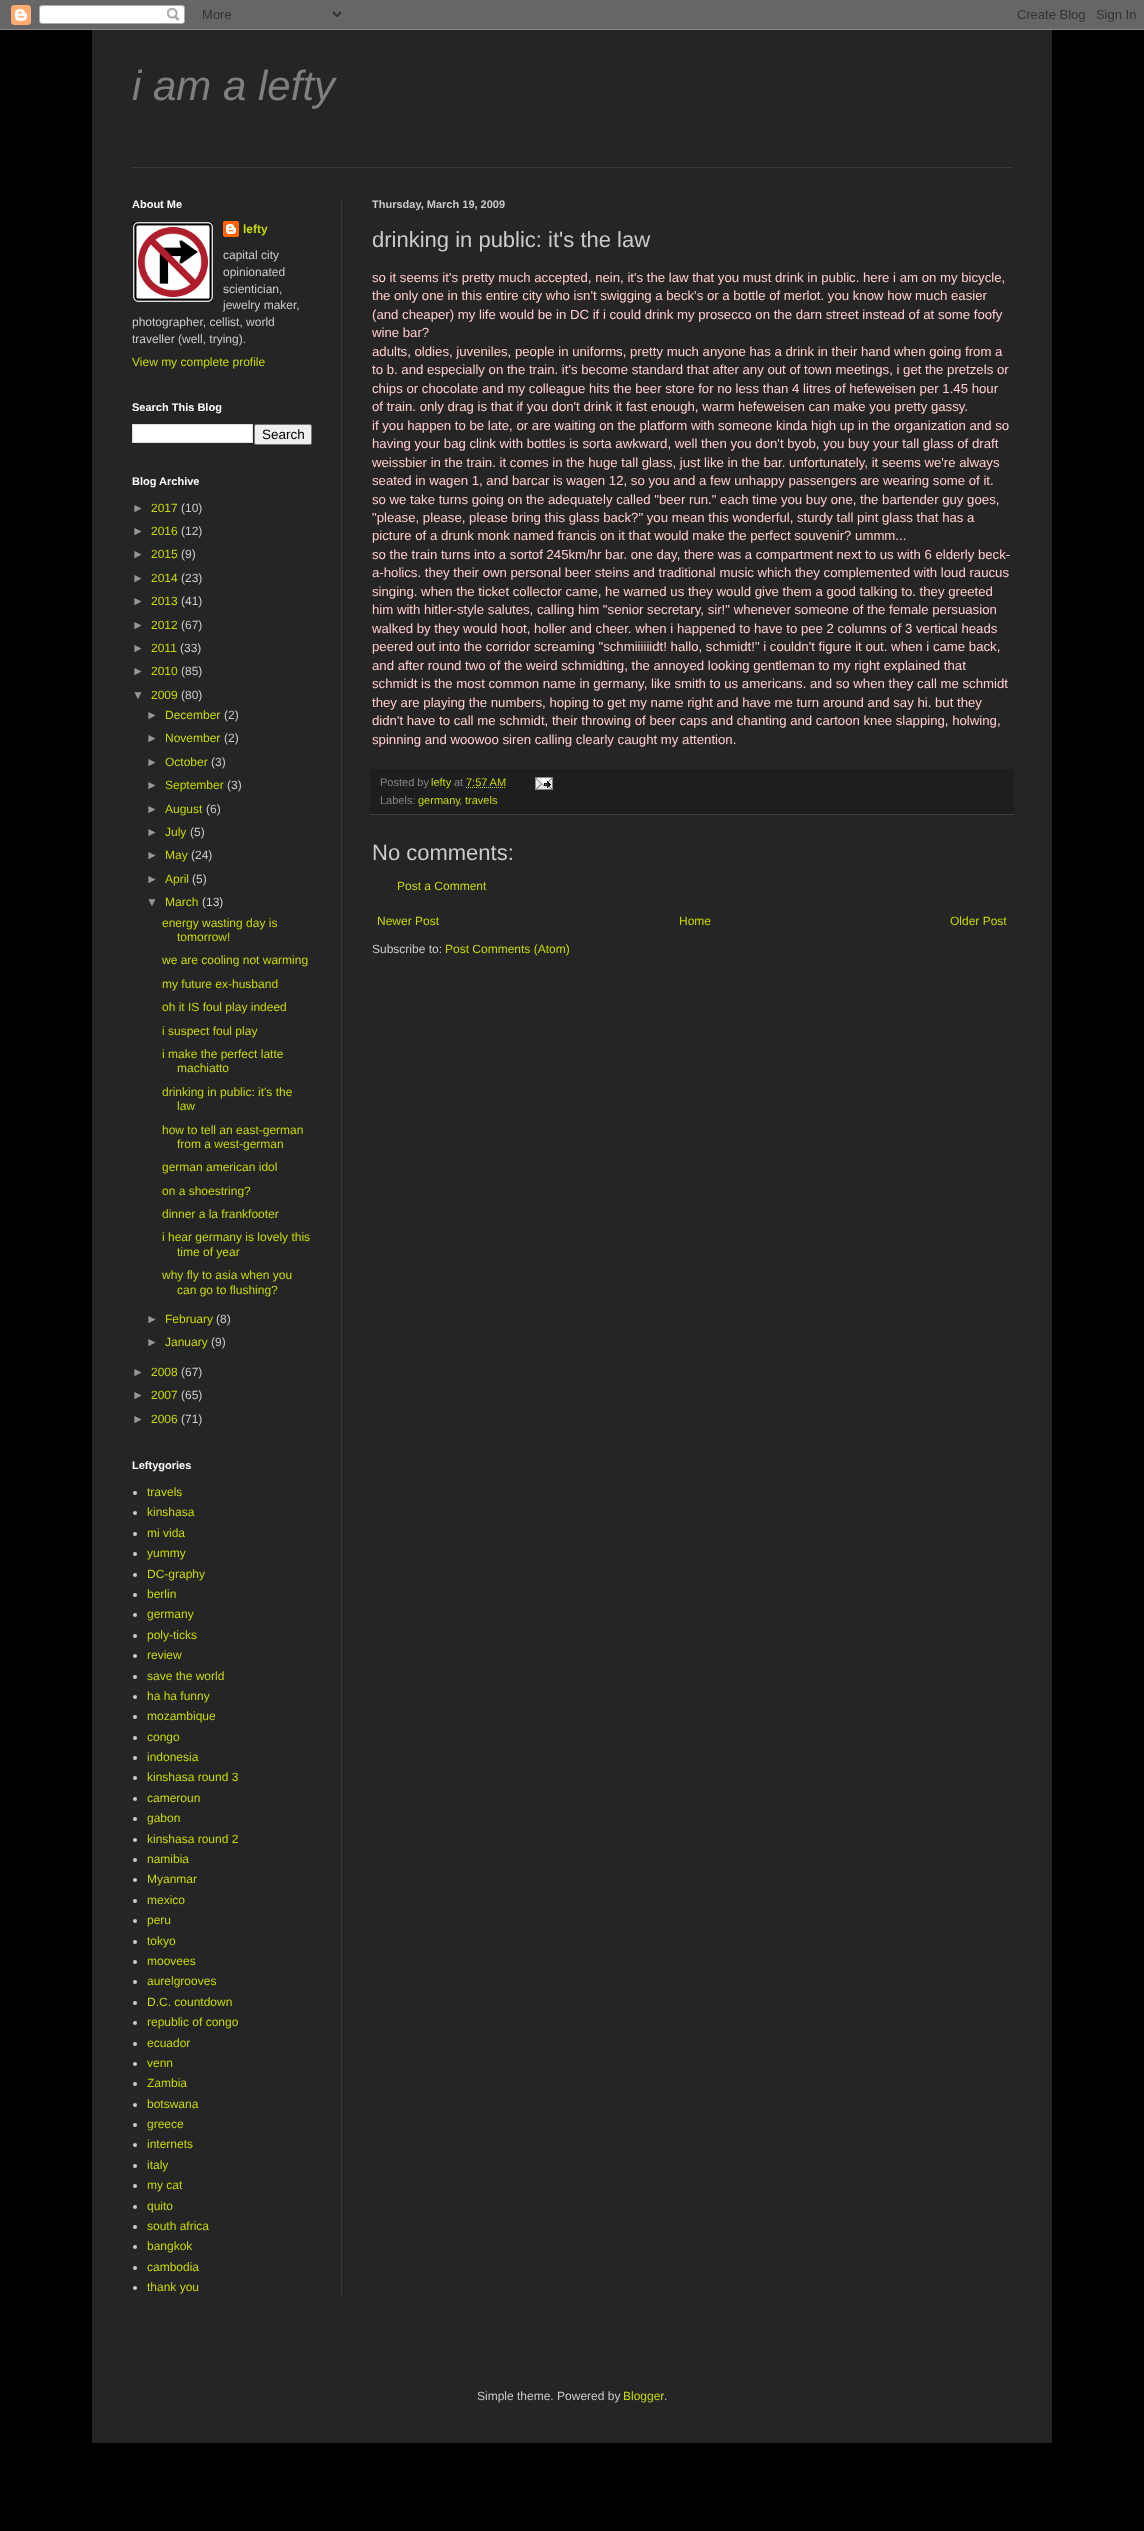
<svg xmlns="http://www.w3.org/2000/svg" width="1144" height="2531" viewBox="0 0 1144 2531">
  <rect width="100%" height="100%" fill="rgb(0,0,0)"/>
  <image x="0" y="0" width="1144" height="30" href="pic1.png"/>
  <rect x="92" y="30" width="960" height="2413" fill="rgb(37,37,37)"/>
  <text x="132" y="100" font-family="Liberation Sans" font-size="42" font-style="italic" fill="rgb(127,127,127)">i am a lefty</text>
  <rect x="132" y="167" width="880" height="1" fill="rgb(56,56,56)"/>
  <rect x="341" y="198" width="1" height="2100" fill="rgb(56,56,56)"/>
  <text x="132" y="208" font-family="Liberation Sans" font-size="11" font-weight="bold" fill="rgb(255,255,255)">About Me</text>
  <image x="133" y="222" width="80" height="80" href="pic2.png"/>
  <image x="223" y="221" width="16" height="16" href="pic3.png"/>
  <text x="243" y="233" font-family="Liberation Sans" font-size="12" font-weight="bold" fill="rgb(199,216,0)">lefty</text>
  <g font-family="Liberation Sans" font-size="12" fill="rgb(203,203,203)">
    <text>
      <tspan x="223" y="259">capital city</tspan>
      <tspan x="223" y="276">opinionated</tspan>
      <tspan x="223" y="293">scientician,</tspan>
      <tspan x="223" y="309">jewelry maker,</tspan>
    </text>
    <text>
      <tspan x="132" y="326">photographer, cellist, world</tspan>
      <tspan x="132" y="343">traveller (well, trying).</tspan>
    </text>
  </g>
  <text x="132" y="366" font-family="Liberation Sans" font-size="12" fill="rgb(199,216,0)">View my complete profile</text>
  <text x="132" y="411" font-family="Liberation Sans" font-size="11" font-weight="bold" fill="rgb(255,255,255)">Search This Blog</text>
  <rect x="132.5" y="424.5" width="120" height="18" fill="rgb(255,255,255)" stroke="rgb(221,221,221)"/>
  <rect x="254.5" y="424.5" width="57" height="20" rx="1.5" fill="rgb(239,239,239)" stroke="rgb(118,118,118)"/>
  <text x="262" y="439" font-family="Liberation Sans" font-size="13.5" fill="rgb(0,0,0)">Search</text>
  <text x="132" y="485" font-family="Liberation Sans" font-size="11" font-weight="bold" fill="rgb(255,255,255)">Blog Archive</text>
  <text x="132" y="512" font-family="Liberation Sans" font-size="12" fill="rgb(151,151,151)">►</text>
  <text x="151" y="512" font-family="Liberation Sans" font-size="12" fill="rgb(199,216,0)">2017</text>
  <text x="181" y="512" font-family="Liberation Sans" font-size="12" fill="rgb(203,203,203)">(10)</text>
  <text x="132" y="535" font-family="Liberation Sans" font-size="12" fill="rgb(151,151,151)">►</text>
  <text x="151" y="535" font-family="Liberation Sans" font-size="12" fill="rgb(199,216,0)">2016</text>
  <text x="181" y="535" font-family="Liberation Sans" font-size="12" fill="rgb(203,203,203)">(12)</text>
  <text x="132" y="558" font-family="Liberation Sans" font-size="12" fill="rgb(151,151,151)">►</text>
  <text x="151" y="558" font-family="Liberation Sans" font-size="12" fill="rgb(199,216,0)">2015</text>
  <text x="181" y="558" font-family="Liberation Sans" font-size="12" fill="rgb(203,203,203)">(9)</text>
  <text x="132" y="582" font-family="Liberation Sans" font-size="12" fill="rgb(151,151,151)">►</text>
  <text x="151" y="582" font-family="Liberation Sans" font-size="12" fill="rgb(199,216,0)">2014</text>
  <text x="181" y="582" font-family="Liberation Sans" font-size="12" fill="rgb(203,203,203)">(23)</text>
  <text x="132" y="605" font-family="Liberation Sans" font-size="12" fill="rgb(151,151,151)">►</text>
  <text x="151" y="605" font-family="Liberation Sans" font-size="12" fill="rgb(199,216,0)">2013</text>
  <text x="181" y="605" font-family="Liberation Sans" font-size="12" fill="rgb(203,203,203)">(41)</text>
  <text x="132" y="629" font-family="Liberation Sans" font-size="12" fill="rgb(151,151,151)">►</text>
  <text x="151" y="629" font-family="Liberation Sans" font-size="12" fill="rgb(199,216,0)">2012</text>
  <text x="181" y="629" font-family="Liberation Sans" font-size="12" fill="rgb(203,203,203)">(67)</text>
  <text x="132" y="652" font-family="Liberation Sans" font-size="12" fill="rgb(151,151,151)">►</text>
  <text x="151" y="652" font-family="Liberation Sans" font-size="12" fill="rgb(199,216,0)">2011</text>
  <text x="180" y="652" font-family="Liberation Sans" font-size="12" fill="rgb(203,203,203)">(33)</text>
  <text x="132" y="675" font-family="Liberation Sans" font-size="12" fill="rgb(151,151,151)">►</text>
  <text x="151" y="675" font-family="Liberation Sans" font-size="12" fill="rgb(199,216,0)">2010</text>
  <text x="181" y="675" font-family="Liberation Sans" font-size="12" fill="rgb(203,203,203)">(85)</text>
  <text x="132" y="699" font-family="Liberation Sans" font-size="12" fill="rgb(151,151,151)">▼</text>
  <text x="151" y="699" font-family="Liberation Sans" font-size="12" fill="rgb(199,216,0)">2009</text>
  <text x="181" y="699" font-family="Liberation Sans" font-size="12" fill="rgb(203,203,203)">(80)</text>
  <text x="146" y="719" font-family="Liberation Sans" font-size="12" fill="rgb(151,151,151)">►</text>
  <text x="165" y="719" font-family="Liberation Sans" font-size="12" fill="rgb(199,216,0)">December</text>
  <text x="224" y="719" font-family="Liberation Sans" font-size="12" fill="rgb(203,203,203)">(2)</text>
  <text x="146" y="742" font-family="Liberation Sans" font-size="12" fill="rgb(151,151,151)">►</text>
  <text x="165" y="742" font-family="Liberation Sans" font-size="12" fill="rgb(199,216,0)">November</text>
  <text x="224" y="742" font-family="Liberation Sans" font-size="12" fill="rgb(203,203,203)">(2)</text>
  <text x="146" y="766" font-family="Liberation Sans" font-size="12" fill="rgb(151,151,151)">►</text>
  <text x="165" y="766" font-family="Liberation Sans" font-size="12" fill="rgb(199,216,0)">October</text>
  <text x="211" y="766" font-family="Liberation Sans" font-size="12" fill="rgb(203,203,203)">(3)</text>
  <text x="146" y="789" font-family="Liberation Sans" font-size="12" fill="rgb(151,151,151)">►</text>
  <text x="165" y="789" font-family="Liberation Sans" font-size="12" fill="rgb(199,216,0)">September</text>
  <text x="227" y="789" font-family="Liberation Sans" font-size="12" fill="rgb(203,203,203)">(3)</text>
  <text x="146" y="813" font-family="Liberation Sans" font-size="12" fill="rgb(151,151,151)">►</text>
  <text x="165" y="813" font-family="Liberation Sans" font-size="12" fill="rgb(199,216,0)">August</text>
  <text x="206" y="813" font-family="Liberation Sans" font-size="12" fill="rgb(203,203,203)">(6)</text>
  <text x="146" y="836" font-family="Liberation Sans" font-size="12" fill="rgb(151,151,151)">►</text>
  <text x="165" y="836" font-family="Liberation Sans" font-size="12" fill="rgb(199,216,0)">July</text>
  <text x="190" y="836" font-family="Liberation Sans" font-size="12" fill="rgb(203,203,203)">(5)</text>
  <text x="146" y="859" font-family="Liberation Sans" font-size="12" fill="rgb(151,151,151)">►</text>
  <text x="165" y="859" font-family="Liberation Sans" font-size="12" fill="rgb(199,216,0)">May</text>
  <text x="191" y="859" font-family="Liberation Sans" font-size="12" fill="rgb(203,203,203)">(24)</text>
  <text x="146" y="883" font-family="Liberation Sans" font-size="12" fill="rgb(151,151,151)">►</text>
  <text x="165" y="883" font-family="Liberation Sans" font-size="12" fill="rgb(199,216,0)">April</text>
  <text x="192" y="883" font-family="Liberation Sans" font-size="12" fill="rgb(203,203,203)">(5)</text>
  <text x="146" y="906" font-family="Liberation Sans" font-size="12" fill="rgb(151,151,151)">▼</text>
  <text x="165" y="906" font-family="Liberation Sans" font-size="12" fill="rgb(199,216,0)">March</text>
  <text x="202" y="906" font-family="Liberation Sans" font-size="12" fill="rgb(203,203,203)">(13)</text>
  <g font-family="Liberation Sans" font-size="12" fill="rgb(199,216,0)">
    <text x="162" y="927">energy wasting day is</text>
    <text x="177" y="941">tomorrow!</text>
    <text x="162" y="964">we are cooling not warming</text>
    <text>
      <tspan x="162" y="988">my future ex-husband</tspan>
      <tspan x="162" y="1011">oh it IS foul play indeed</tspan>
    </text>
    <text>
      <tspan x="162" y="1035">i suspect foul play</tspan>
      <tspan x="162" y="1058">i make the perfect latte</tspan>
    </text>
    <text x="177" y="1072">machiatto</text>
    <text x="162" y="1096">drinking in public: it's the</text>
    <text x="177" y="1110">law</text>
    <text x="162" y="1134">how to tell an east-german</text>
    <text x="177" y="1148">from a west-german</text>
    <text x="162" y="1171">german american idol</text>
    <text>
      <tspan x="162" y="1195">on a shoestring?</tspan>
      <tspan x="162" y="1218">dinner a la frankfooter</tspan>
      <tspan x="162" y="1241">i hear germany is lovely this</tspan>
    </text>
    <text x="177" y="1256">time of year</text>
    <text x="162" y="1279">why fly to asia when you</text>
    <text x="177" y="1294">can go to flushing?</text>
  </g>
  <text x="146" y="1323" font-family="Liberation Sans" font-size="12" fill="rgb(151,151,151)">►</text>
  <text x="165" y="1323" font-family="Liberation Sans" font-size="12" fill="rgb(199,216,0)">February</text>
  <text x="216" y="1323" font-family="Liberation Sans" font-size="12" fill="rgb(203,203,203)">(8)</text>
  <text x="146" y="1346" font-family="Liberation Sans" font-size="12" fill="rgb(151,151,151)">►</text>
  <text x="165" y="1346" font-family="Liberation Sans" font-size="12" fill="rgb(199,216,0)">January</text>
  <text x="211" y="1346" font-family="Liberation Sans" font-size="12" fill="rgb(203,203,203)">(9)</text>
  <text x="132" y="1376" font-family="Liberation Sans" font-size="12" fill="rgb(151,151,151)">►</text>
  <text x="151" y="1376" font-family="Liberation Sans" font-size="12" fill="rgb(199,216,0)">2008</text>
  <text x="181" y="1376" font-family="Liberation Sans" font-size="12" fill="rgb(203,203,203)">(67)</text>
  <text x="132" y="1399" font-family="Liberation Sans" font-size="12" fill="rgb(151,151,151)">►</text>
  <text x="151" y="1399" font-family="Liberation Sans" font-size="12" fill="rgb(199,216,0)">2007</text>
  <text x="181" y="1399" font-family="Liberation Sans" font-size="12" fill="rgb(203,203,203)">(65)</text>
  <text x="132" y="1423" font-family="Liberation Sans" font-size="12" fill="rgb(151,151,151)">►</text>
  <text x="151" y="1423" font-family="Liberation Sans" font-size="12" fill="rgb(199,216,0)">2006</text>
  <text x="181" y="1423" font-family="Liberation Sans" font-size="12" fill="rgb(203,203,203)">(71)</text>
  <text x="132" y="1469" font-family="Liberation Sans" font-size="11" font-weight="bold" fill="rgb(255,255,255)">Leftygories</text>
  <circle cx="135" cy="1493" r="2" fill="rgb(203,203,203)"/>
  <text x="147" y="1496" font-family="Liberation Sans" font-size="12" fill="rgb(199,216,0)">travels</text>
  <circle cx="135" cy="1513" r="2" fill="rgb(203,203,203)"/>
  <text x="147" y="1516" font-family="Liberation Sans" font-size="12" fill="rgb(199,216,0)">kinshasa</text>
  <circle cx="135" cy="1534" r="2" fill="rgb(203,203,203)"/>
  <text x="147" y="1537" font-family="Liberation Sans" font-size="12" fill="rgb(199,216,0)">mi vida</text>
  <circle cx="135" cy="1554" r="2" fill="rgb(203,203,203)"/>
  <text x="147" y="1557" font-family="Liberation Sans" font-size="12" fill="rgb(199,216,0)">yummy</text>
  <circle cx="135" cy="1575" r="2" fill="rgb(203,203,203)"/>
  <text x="147" y="1578" font-family="Liberation Sans" font-size="12" fill="rgb(199,216,0)">DC-graphy</text>
  <circle cx="135" cy="1595" r="2" fill="rgb(203,203,203)"/>
  <text x="147" y="1598" font-family="Liberation Sans" font-size="12" fill="rgb(199,216,0)">berlin</text>
  <circle cx="135" cy="1615" r="2" fill="rgb(203,203,203)"/>
  <text x="147" y="1618" font-family="Liberation Sans" font-size="12" fill="rgb(199,216,0)">germany</text>
  <circle cx="135" cy="1636" r="2" fill="rgb(203,203,203)"/>
  <text x="147" y="1639" font-family="Liberation Sans" font-size="12" fill="rgb(199,216,0)">poly-ticks</text>
  <circle cx="135" cy="1656" r="2" fill="rgb(203,203,203)"/>
  <text x="147" y="1659" font-family="Liberation Sans" font-size="12" fill="rgb(199,216,0)">review</text>
  <circle cx="135" cy="1677" r="2" fill="rgb(203,203,203)"/>
  <text x="147" y="1680" font-family="Liberation Sans" font-size="12" fill="rgb(199,216,0)">save the world</text>
  <circle cx="135" cy="1697" r="2" fill="rgb(203,203,203)"/>
  <text x="147" y="1700" font-family="Liberation Sans" font-size="12" fill="rgb(199,216,0)">ha ha funny</text>
  <circle cx="135" cy="1717" r="2" fill="rgb(203,203,203)"/>
  <text x="147" y="1720" font-family="Liberation Sans" font-size="12" fill="rgb(199,216,0)">mozambique</text>
  <circle cx="135" cy="1738" r="2" fill="rgb(203,203,203)"/>
  <text x="147" y="1741" font-family="Liberation Sans" font-size="12" fill="rgb(199,216,0)">congo</text>
  <circle cx="135" cy="1758" r="2" fill="rgb(203,203,203)"/>
  <text x="147" y="1761" font-family="Liberation Sans" font-size="12" fill="rgb(199,216,0)">indonesia</text>
  <circle cx="135" cy="1778" r="2" fill="rgb(203,203,203)"/>
  <text x="147" y="1781" font-family="Liberation Sans" font-size="12" fill="rgb(199,216,0)">kinshasa round 3</text>
  <circle cx="135" cy="1799" r="2" fill="rgb(203,203,203)"/>
  <text x="147" y="1802" font-family="Liberation Sans" font-size="12" fill="rgb(199,216,0)">cameroun</text>
  <circle cx="135" cy="1819" r="2" fill="rgb(203,203,203)"/>
  <text x="147" y="1822" font-family="Liberation Sans" font-size="12" fill="rgb(199,216,0)">gabon</text>
  <circle cx="135" cy="1840" r="2" fill="rgb(203,203,203)"/>
  <text x="147" y="1843" font-family="Liberation Sans" font-size="12" fill="rgb(199,216,0)">kinshasa round 2</text>
  <circle cx="135" cy="1860" r="2" fill="rgb(203,203,203)"/>
  <text x="147" y="1863" font-family="Liberation Sans" font-size="12" fill="rgb(199,216,0)">namibia</text>
  <circle cx="135" cy="1880" r="2" fill="rgb(203,203,203)"/>
  <text x="147" y="1883" font-family="Liberation Sans" font-size="12" fill="rgb(199,216,0)">Myanmar</text>
  <circle cx="135" cy="1901" r="2" fill="rgb(203,203,203)"/>
  <text x="147" y="1904" font-family="Liberation Sans" font-size="12" fill="rgb(199,216,0)">mexico</text>
  <circle cx="135" cy="1921" r="2" fill="rgb(203,203,203)"/>
  <text x="147" y="1924" font-family="Liberation Sans" font-size="12" fill="rgb(199,216,0)">peru</text>
  <circle cx="135" cy="1942" r="2" fill="rgb(203,203,203)"/>
  <text x="147" y="1945" font-family="Liberation Sans" font-size="12" fill="rgb(199,216,0)">tokyo</text>
  <circle cx="135" cy="1962" r="2" fill="rgb(203,203,203)"/>
  <text x="147" y="1965" font-family="Liberation Sans" font-size="12" fill="rgb(199,216,0)">moovees</text>
  <circle cx="135" cy="1982" r="2" fill="rgb(203,203,203)"/>
  <text x="147" y="1985" font-family="Liberation Sans" font-size="12" fill="rgb(199,216,0)">aurelgrooves</text>
  <circle cx="135" cy="2003" r="2" fill="rgb(203,203,203)"/>
  <text x="147" y="2006" font-family="Liberation Sans" font-size="12" fill="rgb(199,216,0)">D.C. countdown</text>
  <circle cx="135" cy="2023" r="2" fill="rgb(203,203,203)"/>
  <text x="147" y="2026" font-family="Liberation Sans" font-size="12" fill="rgb(199,216,0)">republic of congo</text>
  <circle cx="135" cy="2044" r="2" fill="rgb(203,203,203)"/>
  <text x="147" y="2047" font-family="Liberation Sans" font-size="12" fill="rgb(199,216,0)">ecuador</text>
  <circle cx="135" cy="2064" r="2" fill="rgb(203,203,203)"/>
  <text x="147" y="2067" font-family="Liberation Sans" font-size="12" fill="rgb(199,216,0)">venn</text>
  <circle cx="135" cy="2084" r="2" fill="rgb(203,203,203)"/>
  <text x="147" y="2087" font-family="Liberation Sans" font-size="12" fill="rgb(199,216,0)">Zambia</text>
  <circle cx="135" cy="2105" r="2" fill="rgb(203,203,203)"/>
  <text x="147" y="2108" font-family="Liberation Sans" font-size="12" fill="rgb(199,216,0)">botswana</text>
  <circle cx="135" cy="2125" r="2" fill="rgb(203,203,203)"/>
  <text x="147" y="2128" font-family="Liberation Sans" font-size="12" fill="rgb(199,216,0)">greece</text>
  <circle cx="135" cy="2145" r="2" fill="rgb(203,203,203)"/>
  <text x="147" y="2148" font-family="Liberation Sans" font-size="12" fill="rgb(199,216,0)">internets</text>
  <circle cx="135" cy="2166" r="2" fill="rgb(203,203,203)"/>
  <text x="147" y="2169" font-family="Liberation Sans" font-size="12" fill="rgb(199,216,0)">italy</text>
  <circle cx="135" cy="2186" r="2" fill="rgb(203,203,203)"/>
  <text x="147" y="2189" font-family="Liberation Sans" font-size="12" fill="rgb(199,216,0)">my cat</text>
  <circle cx="135" cy="2207" r="2" fill="rgb(203,203,203)"/>
  <text x="147" y="2210" font-family="Liberation Sans" font-size="12" fill="rgb(199,216,0)">quito</text>
  <circle cx="135" cy="2227" r="2" fill="rgb(203,203,203)"/>
  <text x="147" y="2230" font-family="Liberation Sans" font-size="12" fill="rgb(199,216,0)">south africa</text>
  <circle cx="135" cy="2247" r="2" fill="rgb(203,203,203)"/>
  <text x="147" y="2250" font-family="Liberation Sans" font-size="12" fill="rgb(199,216,0)">bangkok</text>
  <circle cx="135" cy="2268" r="2" fill="rgb(203,203,203)"/>
  <text x="147" y="2271" font-family="Liberation Sans" font-size="12" fill="rgb(199,216,0)">cambodia</text>
  <circle cx="135" cy="2288" r="2" fill="rgb(203,203,203)"/>
  <text x="147" y="2291" font-family="Liberation Sans" font-size="12" fill="rgb(199,216,0)">thank you</text>
  <text x="372" y="208" font-family="Liberation Sans" font-size="11" font-weight="bold" fill="rgb(203,203,203)">Thursday, March 19, 2009</text>
  <text x="372" y="247" font-family="Liberation Sans" font-size="22" fill="rgb(203,203,203)">drinking in public: it's the law</text>
  <g font-family="Liberation Sans" font-size="13.2" fill="rgb(255,204,204)">
    <text>
      <tspan x="372" y="282">so it seems it's pretty much accepted, nein, it's the law that you must drink in public. here i am on my bicycle,</tspan>
      <tspan x="372" y="300">the only one in this entire city who isn't swigging a beck's or a bottle of merlot. you know how much easier</tspan>
      <tspan x="372" y="319">(and cheaper) my life would be in DC if i could drink my prosecco on the darn street instead of at some foofy</tspan>
      <tspan x="372" y="337">wine bar?</tspan>
      <tspan x="372" y="356">adults, oldies, juveniles, people in uniforms, pretty much anyone has a drink in their hand when going from a</tspan>
      <tspan x="372" y="374">to b. and especially on the train. it's become standard that after any out of town meetings, i get the pretzels or</tspan>
      <tspan x="372" y="393">chips or chocolate and my colleague hits the beer store for no less than 4 litres of hefeweisen per 1.45 hour</tspan>
      <tspan x="372" y="411">of train. only drag is that if you don't drink it fast enough, warm hefeweisen can make you pretty gassy.</tspan>
      <tspan x="372" y="430">if you happen to be late, or are waiting on the platform with someone kinda high up in the organization and so</tspan>
      <tspan x="372" y="448">having your bag clink with bottles is sorta awkward, well then you don't byob, you buy your tall glass of draft</tspan>
      <tspan x="372" y="467">weissbier in the train. it comes in the huge tall glass, just like in the bar. unfortunately, it seems we're always</tspan>
      <tspan x="372" y="485">seated in wagen 1, and barcar is wagen 12, so you and a few unhappy passengers are wearing some of it.</tspan>
      <tspan x="372" y="504">so we take turns going on the adequately called "beer run." each time you buy one, the bartender guy goes,</tspan>
      <tspan x="372" y="522">"please, please, please bring this glass back?" you mean this wonderful, sturdy tall pint glass that has a</tspan>
      <tspan x="372" y="540">picture of a drunk monk named francis on it that would make the perfect souvenir? ummm...</tspan>
      <tspan x="372" y="559">so the train turns into a sortof 245km/hr bar. one day, there was a compartment next to us with 6 elderly beck-</tspan>
      <tspan x="372" y="577">a-holics. they their own personal beer steins and traditional music which they complemented with loud raucus</tspan>
      <tspan x="372" y="596">singing. when the ticket collector came, he warned us they would give them a good talking to. they greeted</tspan>
      <tspan x="372" y="614">him with hitler-style salutes, calling him "senior secretary, sir!" whenever someone of the female persuasion</tspan>
      <tspan x="372" y="633">walked by they would hoot, holler and cheer. when i happened to have to pee 2 columns of 3 vertical heads</tspan>
      <tspan x="372" y="651">peered out into the corridor screaming "schmiiiiiidt! hallo, schmidt!" i couldn't figure it out. when i came back,</tspan>
      <tspan x="372" y="670">and after round two of the weird schmidting, the annoyed looking gentleman to my right explained that</tspan>
      <tspan x="372" y="688">schmidt is the most common name in germany, like smith to us americans. and so when they call me schmidt</tspan>
      <tspan x="372" y="707">they are playing the numbers, hoping to get my name right and have me turn around and say hi. but they</tspan>
      <tspan x="372" y="725">didn't have to call me schmidt, their throwing of beer caps and chanting and cartoon knee slapping, holwing,</tspan>
      <tspan x="372" y="744">spinning and woowoo siren calling clearly caught my attention.</tspan>
    </text>
  </g>
  <rect x="370" y="769" width="644" height="45" fill="rgb(30,30,30)"/>
  <rect x="370" y="814" width="644" height="1" fill="rgb(61,61,61)"/>
  <text x="380" y="786" font-family="Liberation Sans" font-size="11" fill="rgb(134,134,134)">Posted by</text>
  <text x="431" y="786" font-family="Liberation Sans" font-size="11" fill="rgb(199,216,0)">lefty</text>
  <text x="454" y="786" font-family="Liberation Sans" font-size="11" fill="rgb(134,134,134)">at</text>
  <text x="466" y="786" font-family="Liberation Sans" font-size="11" fill="rgb(199,216,0)">7:57 AM</text>
  <path d="M466 787.5H505" fill="none" stroke="rgb(199,216,0)" stroke-dasharray="1 1"/>
  <image x="535" y="777" width="18" height="13" href="pic4.png"/>
  <text x="380" y="804" font-family="Liberation Sans" font-size="11" fill="rgb(134,134,134)">Labels:</text>
  <text x="418" y="804" font-family="Liberation Sans" font-size="11" fill="rgb(199,216,0)">germany</text>
  <text x="459" y="804" font-family="Liberation Sans" font-size="11" fill="rgb(134,134,134)">,</text>
  <text x="465" y="804" font-family="Liberation Sans" font-size="11" fill="rgb(199,216,0)">travels</text>
  <text x="372" y="860" font-family="Liberation Sans" font-size="22" fill="rgb(203,203,203)">No comments:</text>
  <g font-family="Liberation Sans" font-size="12" fill="rgb(199,216,0)">
    <text x="397" y="890">Post a Comment</text>
    <text x="377" y="925">Newer Post</text>
    <text x="679" y="925">Home</text>
    <text x="950" y="925">Older Post</text>
  </g>
  <text x="372" y="953" font-family="Liberation Sans" font-size="12" fill="rgb(203,203,203)">Subscribe to:</text>
  <text x="445" y="953" font-family="Liberation Sans" font-size="12" fill="rgb(199,216,0)">Post Comments (Atom)</text>
  <text x="477" y="2400" font-family="Liberation Sans" font-size="12" fill="rgb(203,203,203)">Simple theme. Powered by</text>
  <text x="623" y="2400" font-family="Liberation Sans" font-size="12" fill="rgb(199,216,0)">Blogger</text>
  <text x="664" y="2400" font-family="Liberation Sans" font-size="12" fill="rgb(203,203,203)">.</text>
</svg>
